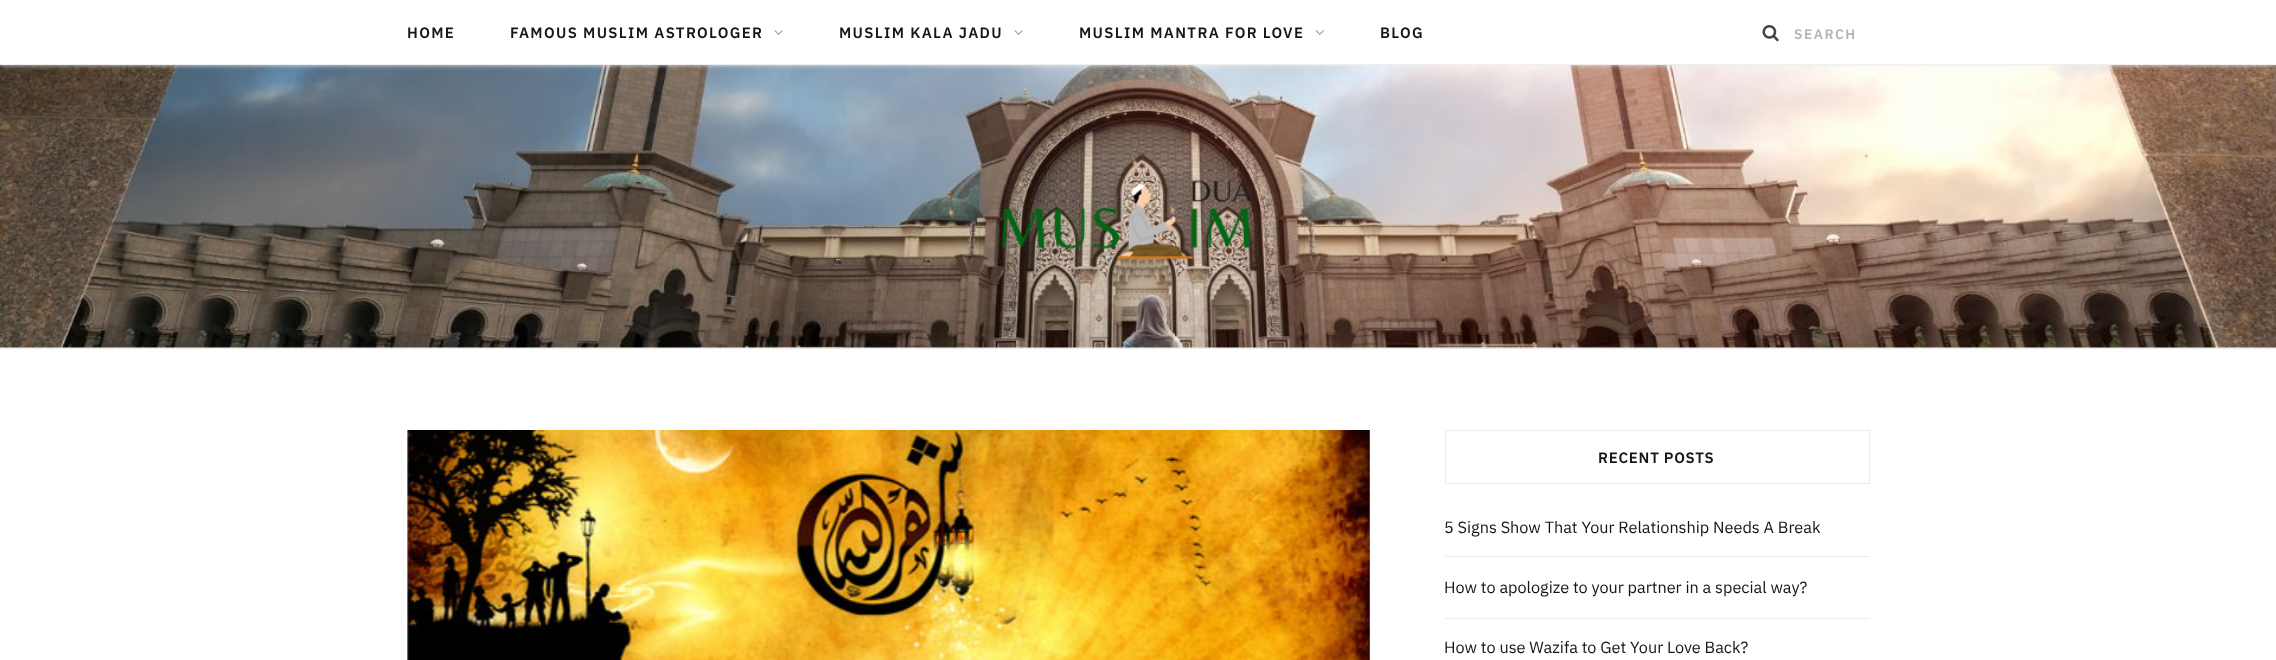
<svg xmlns="http://www.w3.org/2000/svg" width="2276" height="660" viewBox="0 0 2276 660">
  <defs>
    <clipPath id="clip1"><rect x="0" y="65" width="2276" height="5"/></clipPath>
  </defs>
  <rect width="100%" height="100%" fill="rgb(255,255,255)"/>
  <rect x="0" y="348" width="2276" height="1" fill="rgb(235,235,235)"/>
  <image x="0" y="65" width="2276" height="283" href="pic4.png"/>
  <g clip-path="url(#clip1)">
    <rect x="0" y="0" width="2276" height="65" fill="rgb(238,238,238)" filter="blur(2.5px)"/>
  </g>
  <rect x="0" y="64" width="2276" height="1" fill="rgb(239,239,239)"/>
  <g font-family="IBM Plex Sans" font-size="15" font-weight="600" letter-spacing="1.35" fill="rgb(22,22,22)">
    <text x="407" y="38">HOME</text>
    <text x="510" y="38">FAMOUS MUSLIM ASTROLOGER</text>
  </g>
  <image x="774" y="30" width="9" height="5" href="pic1.png"/>
  <text x="839" y="38" font-family="IBM Plex Sans" font-size="15" font-weight="600" letter-spacing="1.35" fill="rgb(22,22,22)">MUSLIM KALA JADU</text>
  <image x="1014" y="30" width="9" height="5" href="pic1.png"/>
  <text x="1079" y="38" font-family="IBM Plex Sans" font-size="15" font-weight="600" letter-spacing="1.35" fill="rgb(22,22,22)">MUSLIM MANTRA FOR LOVE</text>
  <image x="1315" y="30" width="9" height="5" href="pic2.png"/>
  <text x="1380" y="38" font-family="IBM Plex Sans" font-size="15" font-weight="600" letter-spacing="1.35" fill="rgb(22,22,22)">BLOG</text>
  <image x="1762" y="25" width="17" height="17" href="pic3.png"/>
  <text x="1794" y="39" font-family="IBM Plex Sans" font-size="13.75" font-weight="600" letter-spacing="1.5" fill="rgb(180,180,180)">SEARCH</text>
  <image x="944" y="154" width="321" height="106" href="pic5.png"/>
  <image x="407" y="430" width="963" height="230" href="pic6.png"/>
  <rect x="1445.5" y="430.5" width="424" height="53" fill="none" stroke="rgb(235,235,235)"/>
  <text x="1598" y="463" font-family="IBM Plex Sans" font-size="15" font-weight="600" letter-spacing="0.75" fill="rgb(22,22,22)">RECENT POSTS</text>
  <rect x="1445" y="556" width="425" height="1" fill="rgb(235,235,235)"/>
  <text x="1444" y="533" font-family="IBM Plex Sans" font-size="16.25" fill="rgb(22,22,22)">5 Signs Show That Your Relationship Needs A Break</text>
  <rect x="1445" y="618" width="425" height="1" fill="rgb(235,235,235)"/>
  <g font-family="IBM Plex Sans" font-size="16.25" fill="rgb(22,22,22)">
    <text x="1444" y="593">How to apologize to your partner in a special way?</text>
    <text x="1444" y="653">How to use Wazifa to Get Your Love Back?</text>
  </g>
</svg>
